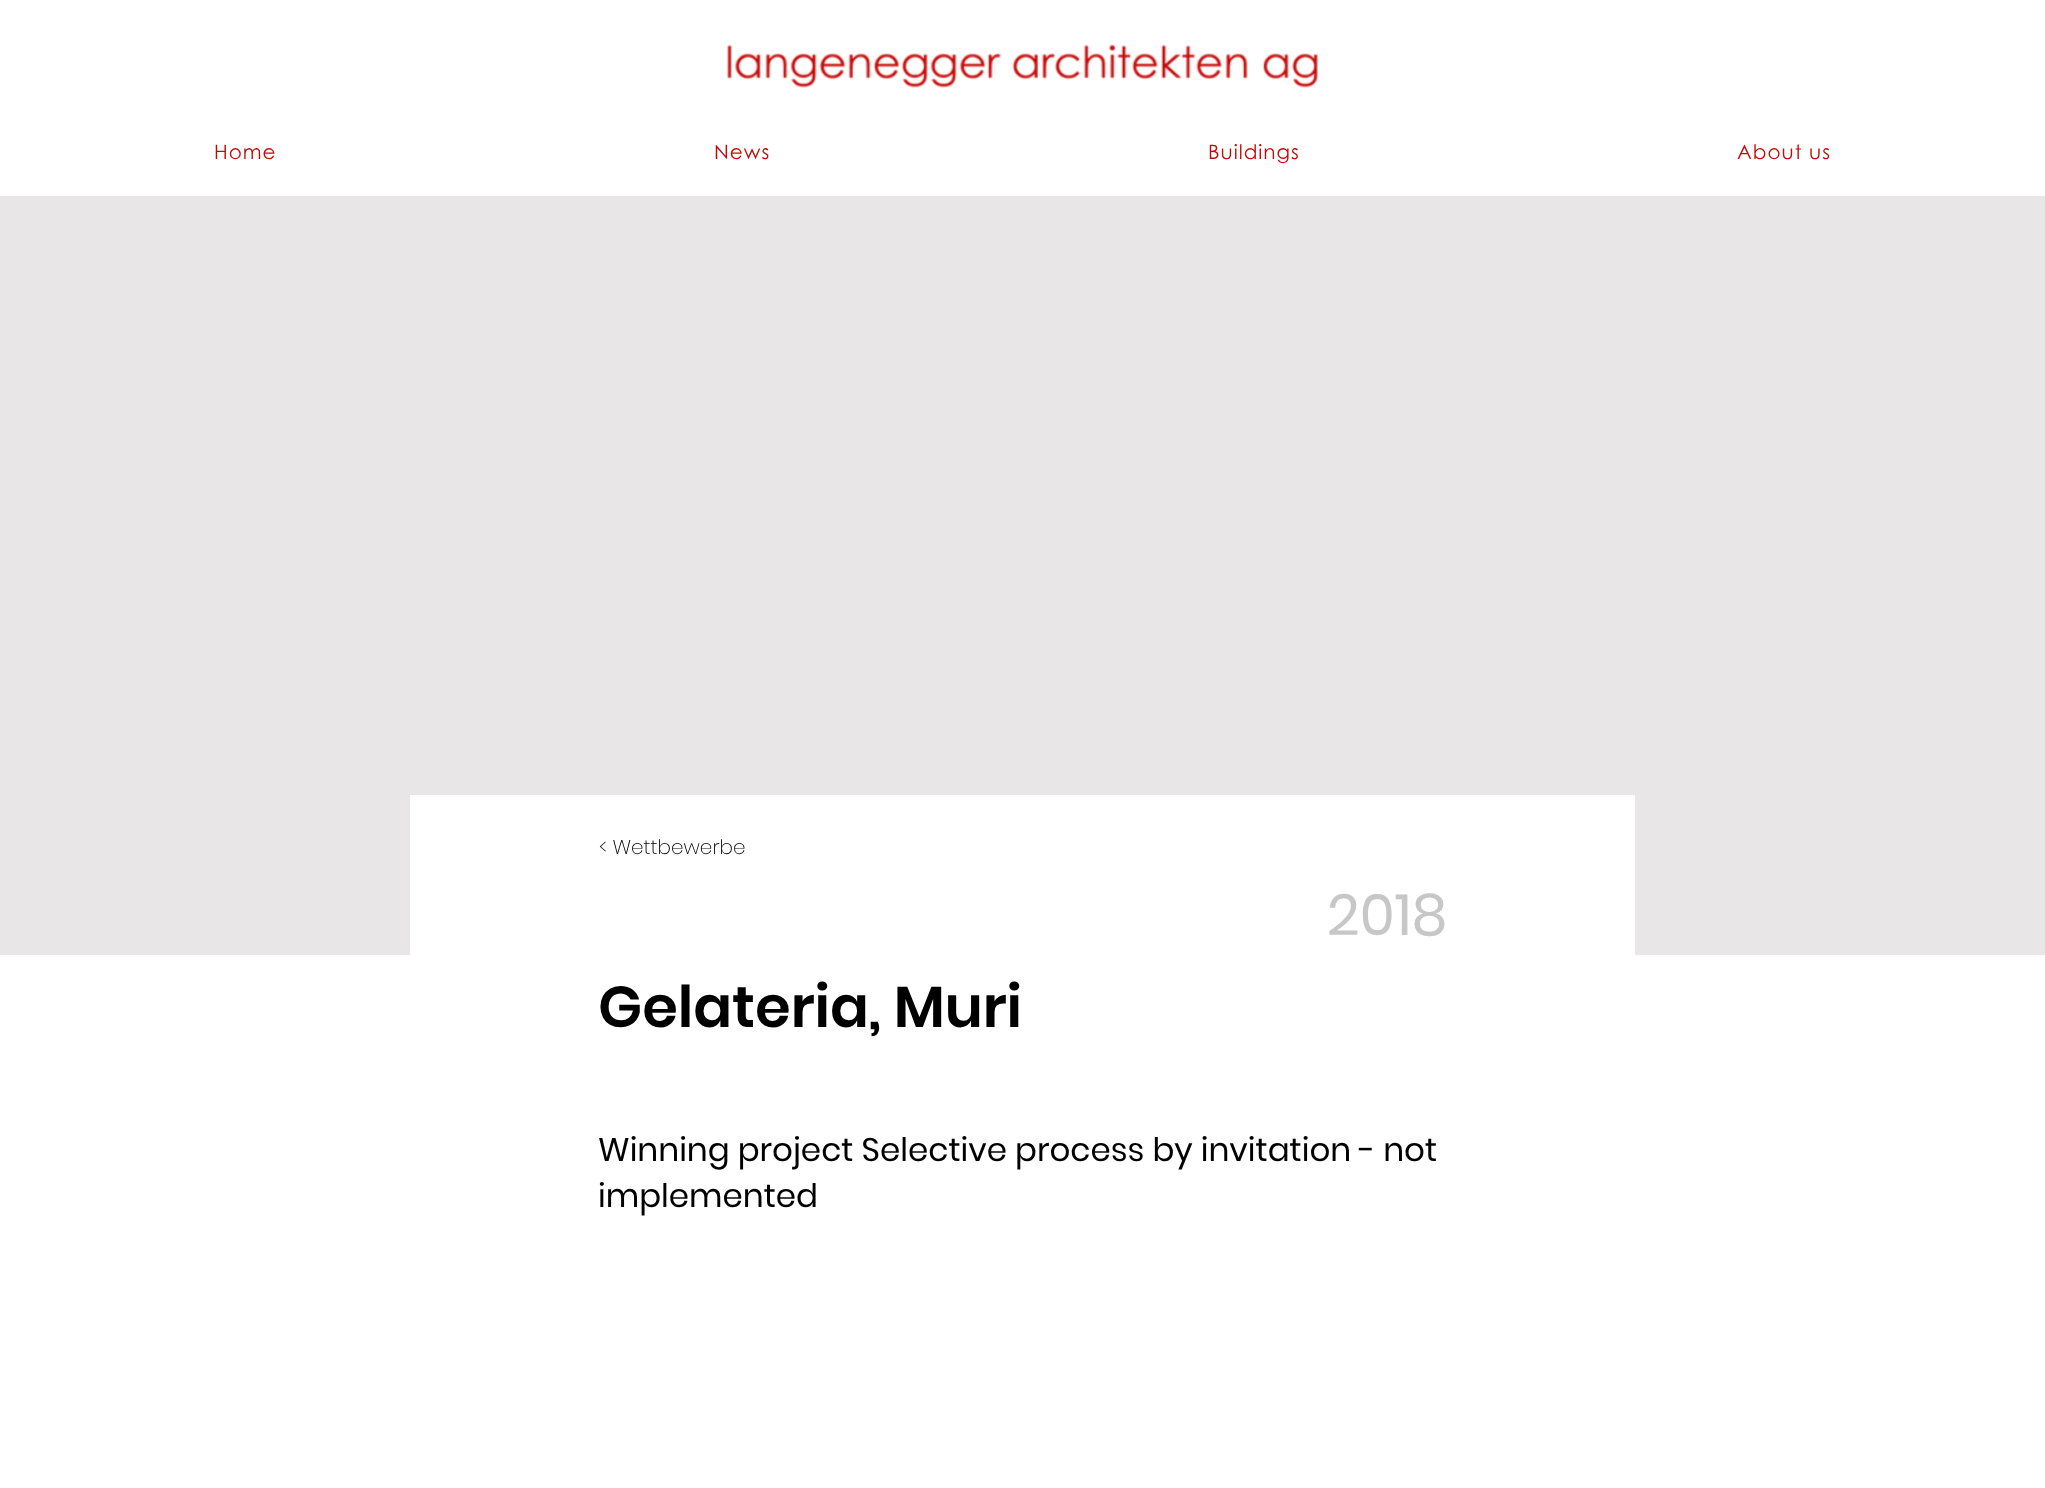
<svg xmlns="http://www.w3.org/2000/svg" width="2045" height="1488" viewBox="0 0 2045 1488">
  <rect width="100%" height="100%" fill="rgb(255,255,255)"/>
  <image x="726" y="44" width="592" height="44" href="pic1.png"/>
  <g font-family="Century Gothic" font-size="20" letter-spacing="1" fill="rgb(199,7,7)">
    <text x="214" y="159">Home</text>
    <text x="714" y="159">News</text>
    <text x="1208" y="159">Buildings</text>
    <text x="1737" y="159">About us</text>
  </g>
  <rect x="0" y="196" width="2045" height="759" fill="rgb(232,230,230)"/>
  <rect x="410" y="795" width="1225" height="160" fill="rgb(255,255,255)"/>
  <text x="599" y="854" font-family="Poppins" font-size="20" font-weight="200" fill="rgb(0,0,0)">&lt; Wettbewerbe</text>
  <text x="1327" y="935" font-family="Poppins" font-size="57.5" fill="rgb(199,199,199)">2018</text>
  <text x="598" y="1027" font-family="Poppins" font-size="57.5" font-weight="600" fill="rgb(0,0,0)">Gelateria, Muri</text>
  <g font-family="Poppins" font-size="32.5" fill="rgb(0,0,0)">
    <text>
      <tspan x="598" y="1161">Winning project Selective process by invitation - not</tspan>
      <tspan x="598" y="1207">implemented</tspan>
    </text>
  </g>
</svg>
